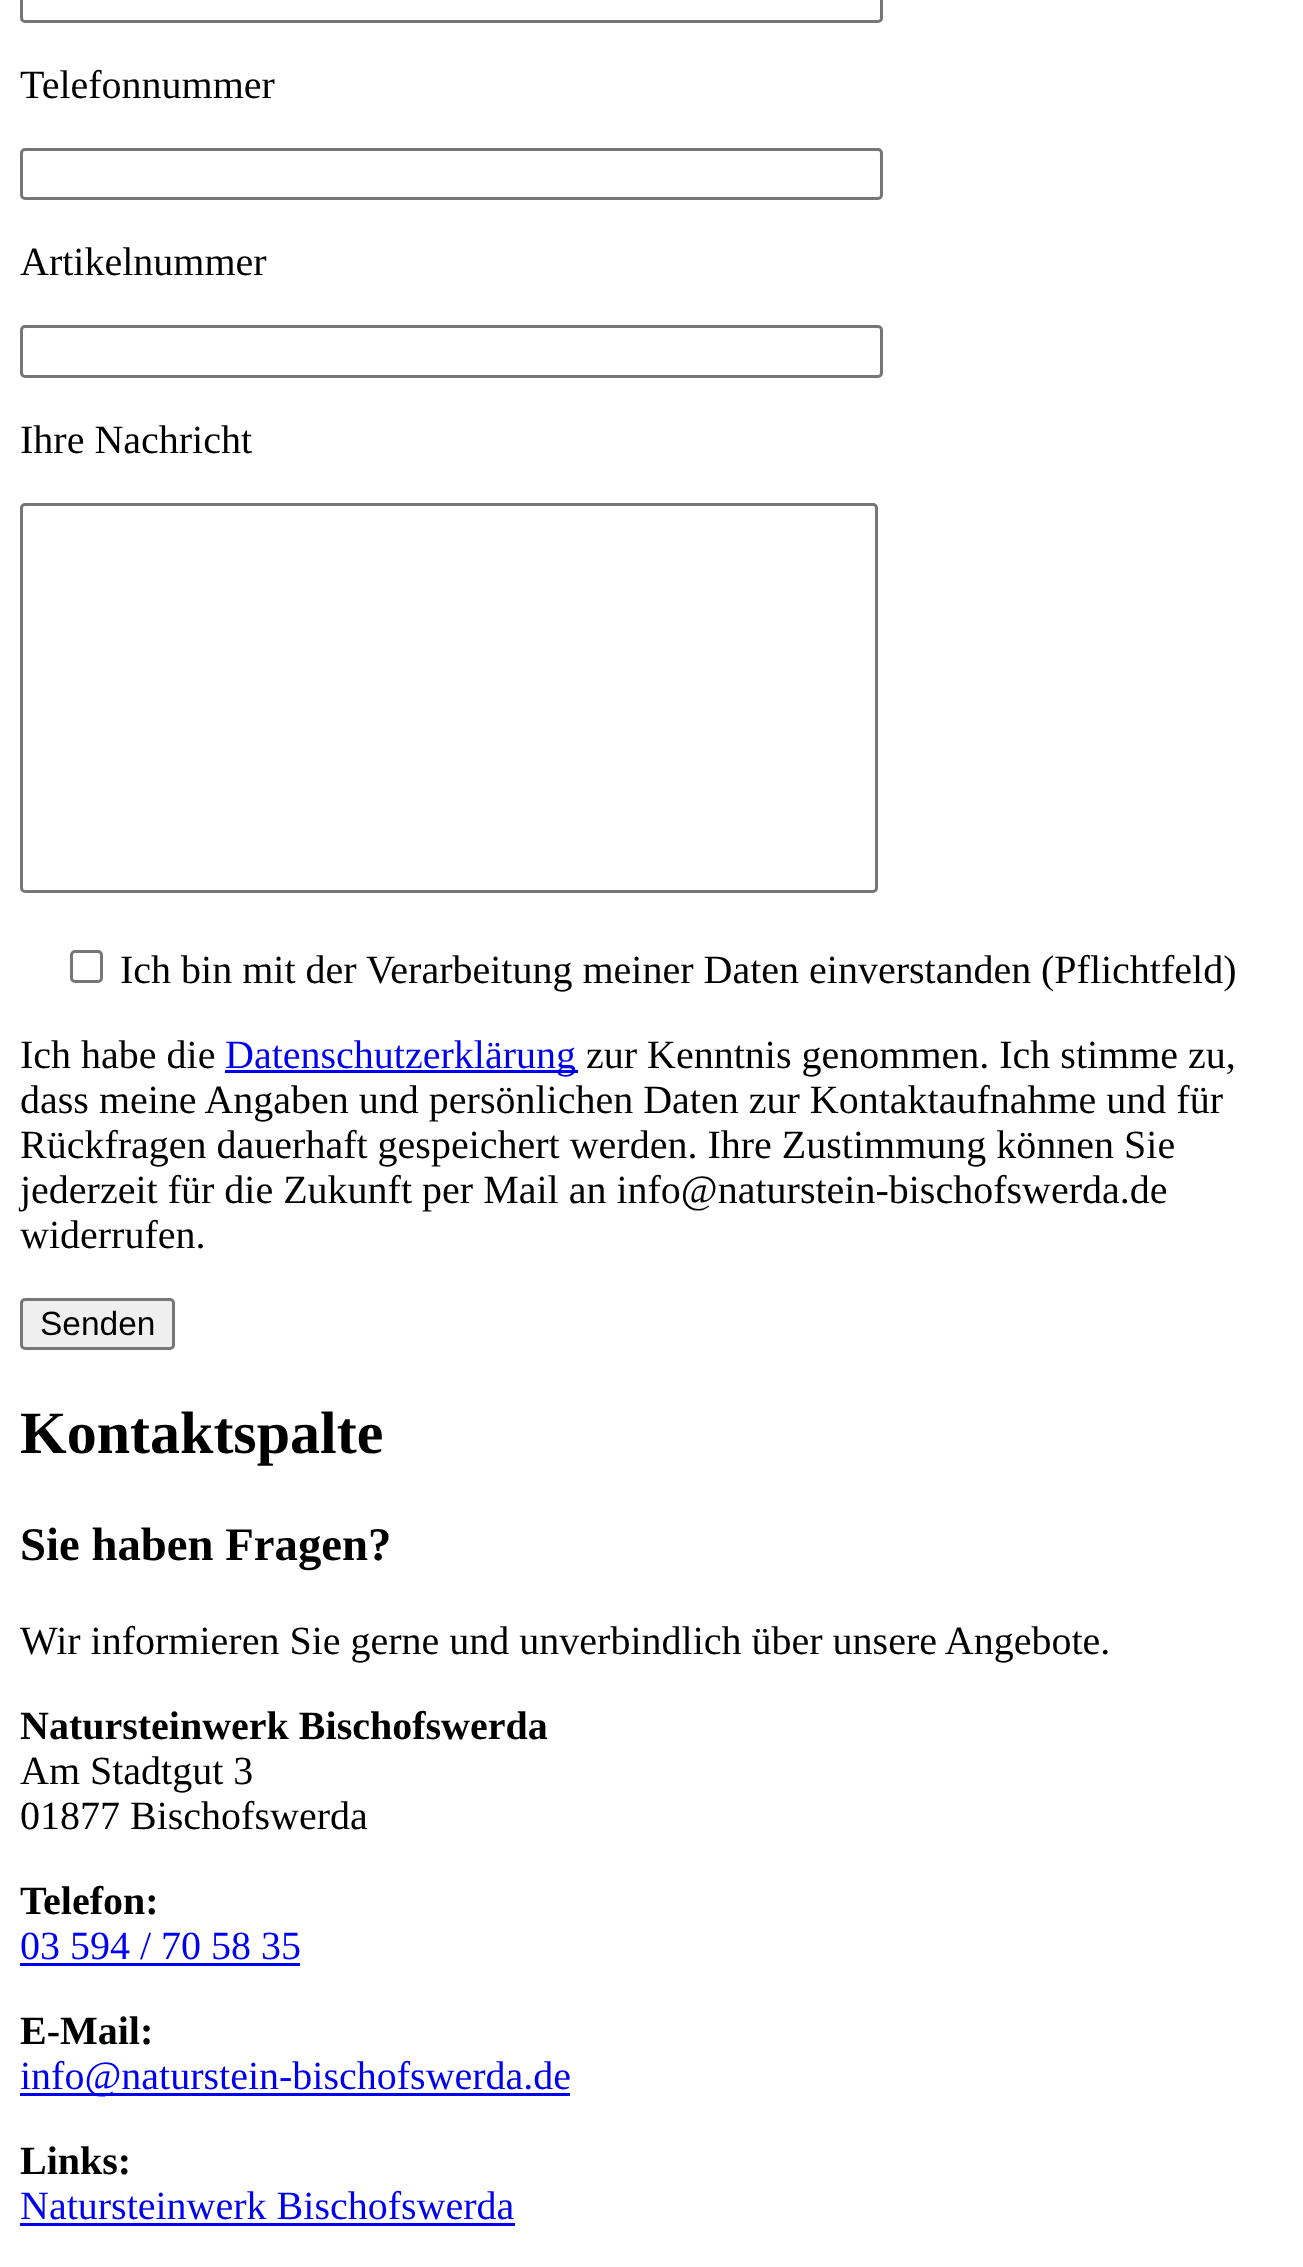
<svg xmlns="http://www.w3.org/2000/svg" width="1303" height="2267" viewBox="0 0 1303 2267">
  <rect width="100%" height="100%" fill="rgb(255,255,255)"/>
  <rect x="21.5" y="-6.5" width="860" height="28" rx="3.5" fill="none" stroke="rgb(118,118,118)" stroke-width="3"/>
  <text x="20" y="98" font-family="Liberation Serif" font-size="40" fill="rgb(0,0,0)">Telefonnummer</text>
  <rect x="21.5" y="149.5" width="860" height="49" rx="3.5" fill="none" stroke="rgb(118,118,118)" stroke-width="3"/>
  <text x="20" y="275" font-family="Liberation Serif" font-size="40" fill="rgb(0,0,0)">Artikelnummer</text>
  <rect x="21.5" y="326.5" width="860" height="50" rx="3.5" fill="none" stroke="rgb(118,118,118)" stroke-width="3"/>
  <text x="20" y="453" font-family="Liberation Serif" font-size="40" fill="rgb(0,0,0)">Ihre Nachricht</text>
  <rect x="21.5" y="504.5" width="855" height="387" rx="3.5" fill="none" stroke="rgb(118,118,118)" stroke-width="3"/>
  <rect x="71.5" y="951.5" width="30" height="30" rx="3.5" fill="none" stroke="rgb(118,118,118)" stroke-width="3"/>
  <g font-family="Liberation Serif" font-size="40" fill="rgb(0,0,0)">
    <text x="120" y="983">Ich bin mit der Verarbeitung meiner Daten einverstanden</text>
    <text x="1041" y="983">(Pflichtfeld)</text>
    <text x="20" y="1068">Ich habe die</text>
  </g>
  <rect x="225" y="1070" width="353" height="3" fill="rgb(0,0,238)"/>
  <text x="225" y="1068" font-family="Liberation Serif" font-size="40" fill="rgb(0,0,238)">Datenschutzerklärung</text>
  <g font-family="Liberation Serif" font-size="40" fill="rgb(0,0,0)">
    <text x="586" y="1068">zur Kenntnis genommen. Ich stimme zu,</text>
    <text>
      <tspan x="20" y="1113">dass meine Angaben und persönlichen Daten zur Kontaktaufnahme und für</tspan>
      <tspan x="20" y="1158">Rückfragen dauerhaft gespeichert werden. Ihre Zustimmung können Sie</tspan>
      <tspan x="20" y="1203">jederzeit für die Zukunft per Mail an info@naturstein-bischofswerda.de</tspan>
      <tspan x="20" y="1248">widerrufen.</tspan>
    </text>
  </g>
  <rect x="21.5" y="1299.5" width="152" height="49" rx="3.5" fill="rgb(239,239,239)" stroke="rgb(118,118,118)" stroke-width="3"/>
  <text x="40" y="1335" font-family="Liberation Sans" font-size="33.5" fill="rgb(0,0,0)">Senden</text>
  <text x="20" y="1453" font-family="Liberation Serif" font-size="60" font-weight="bold" fill="rgb(0,0,0)">Kontaktspalte</text>
  <text x="20" y="1560" font-family="Liberation Serif" font-size="46.75" font-weight="bold" fill="rgb(0,0,0)">Sie haben Fragen?</text>
  <text x="20" y="1654" font-family="Liberation Serif" font-size="40" fill="rgb(0,0,0)">Wir informieren Sie gerne und unverbindlich über unsere Angebote.</text>
  <text x="20" y="1739" font-family="Liberation Serif" font-size="40" font-weight="bold" fill="rgb(0,0,0)">Natursteinwerk Bischofswerda</text>
  <g font-family="Liberation Serif" font-size="40" fill="rgb(0,0,0)">
    <text>
      <tspan x="20" y="1784">Am Stadtgut 3</tspan>
      <tspan x="20" y="1829">01877 Bischofswerda</tspan>
    </text>
  </g>
  <text x="20" y="1914" font-family="Liberation Serif" font-size="40" font-weight="bold" fill="rgb(0,0,0)">Telefon:</text>
  <text x="20" y="1959" font-family="Liberation Serif" font-size="40" fill="rgb(0,0,238)">03 594 / 70 58 35</text>
  <rect x="20" y="1963" width="280" height="3" fill="rgb(0,0,238)"/>
  <text x="20" y="2044" font-family="Liberation Serif" font-size="40" font-weight="bold" fill="rgb(0,0,0)">E-Mail:</text>
  <rect x="20" y="2093" width="550" height="3" fill="rgb(0,0,238)"/>
  <text x="20" y="2089" font-family="Liberation Serif" font-size="40" fill="rgb(0,0,238)">info@naturstein-bischofswerda.de</text>
  <text x="20" y="2174" font-family="Liberation Serif" font-size="40" font-weight="bold" fill="rgb(0,0,0)">Links:</text>
  <text x="20" y="2219" font-family="Liberation Serif" font-size="40" fill="rgb(0,0,238)">Natursteinwerk Bischofswerda</text>
  <rect x="20" y="2223" width="495" height="3" fill="rgb(0,0,238)"/>
</svg>
